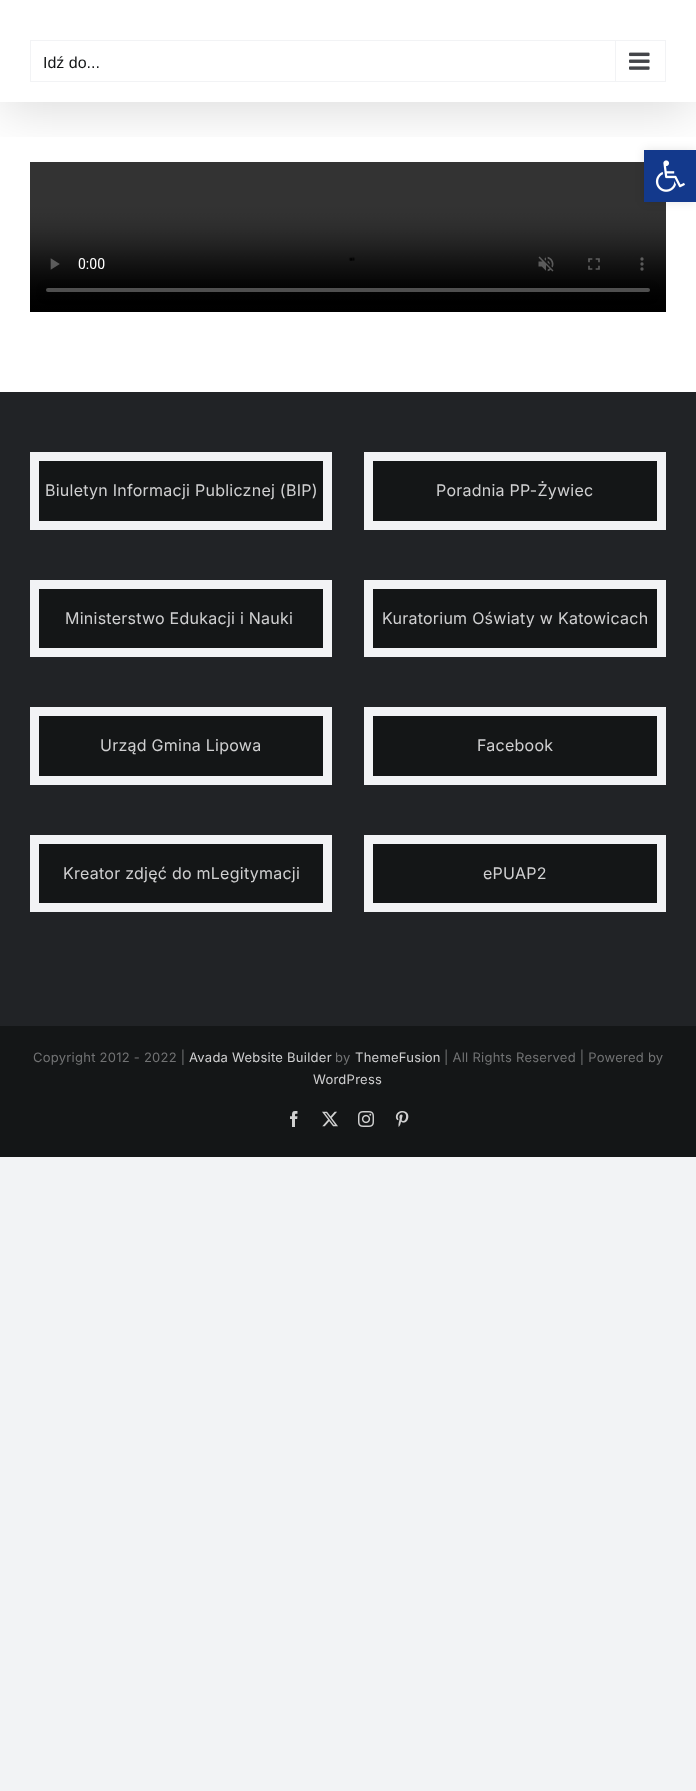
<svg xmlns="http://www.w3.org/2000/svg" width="696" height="1791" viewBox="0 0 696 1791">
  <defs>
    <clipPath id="clip1"><rect x="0" y="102" width="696" height="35"/></clipPath>
  </defs>
  <rect width="100%" height="100%" fill="rgb(242,243,245)"/>
  <rect x="0" y="0" width="696" height="392" fill="rgb(255,255,255)"/>
  <image x="30" y="162" width="636" height="150" href="pic2.png"/>
  <rect x="644" y="150" width="52" height="52" fill="rgba(0,0,0,0.1)" filter="blur(5px)"/>
  <rect x="644" y="150" width="52" height="52" fill="rgb(19,57,140)"/>
  <image x="655" y="160" width="30" height="32" href="pic7.png"/>
  <g clip-path="url(#clip1)">
    <rect x="2" y="12" width="692" height="98" fill="rgba(0,0,0,0.14)" filter="blur(25px)"/>
  </g>
  <rect x="30.5" y="40.5" width="635" height="41" fill="none" stroke="rgb(242,243,245)"/>
  <text x="43" y="68" font-family="Liberation Sans" font-size="16" fill="rgb(20,22,23)">Idź do...</text>
  <rect x="615" y="41" width="1" height="40" fill="rgb(242,243,245)"/>
  <image x="629" y="52" width="21" height="18" href="pic1.png"/>
  <rect x="0" y="392" width="696" height="634" fill="rgb(33,35,38)"/>
  <rect x="34.5" y="456.5" width="293" height="69" fill="rgb(20,22,23)" stroke="rgb(242,243,245)" stroke-width="9"/>
  <text x="45" y="496" font-family="Inter" font-size="16" letter-spacing="0.25" fill="rgb(208,208,209)">Biuletyn Informacji Publicznej (BIP)</text>
  <rect x="34.5" y="584.5" width="293" height="68" fill="rgb(20,22,23)" stroke="rgb(242,243,245)" stroke-width="9"/>
  <text x="65" y="624" font-family="Inter" font-size="16" letter-spacing="0.25" fill="rgb(208,208,209)">Ministerstwo Edukacji i Nauki</text>
  <rect x="368.5" y="456.5" width="293" height="69" fill="rgb(20,22,23)" stroke="rgb(242,243,245)" stroke-width="9"/>
  <text x="436" y="496" font-family="Inter" font-size="16" letter-spacing="0.25" fill="rgb(208,208,209)">Poradnia PP-Żywiec</text>
  <rect x="368.5" y="584.5" width="293" height="68" fill="rgb(20,22,23)" stroke="rgb(242,243,245)" stroke-width="9"/>
  <text x="382" y="624" font-family="Inter" font-size="16" letter-spacing="0.25" fill="rgb(208,208,209)">Kuratorium Oświaty w Katowicach</text>
  <rect x="34.5" y="711.5" width="293" height="69" fill="rgb(20,22,23)" stroke="rgb(242,243,245)" stroke-width="9"/>
  <text x="100" y="751" font-family="Inter" font-size="16" letter-spacing="0.25" fill="rgb(208,208,209)">Urząd Gmina Lipowa</text>
  <rect x="34.5" y="839.5" width="293" height="68" fill="rgb(20,22,23)" stroke="rgb(242,243,245)" stroke-width="9"/>
  <text x="63" y="879" font-family="Inter" font-size="16" letter-spacing="0.25" fill="rgb(208,208,209)">Kreator zdjęć do mLegitymacji</text>
  <rect x="368.5" y="711.5" width="293" height="69" fill="rgb(20,22,23)" stroke="rgb(242,243,245)" stroke-width="9"/>
  <text x="477" y="751" font-family="Inter" font-size="16" letter-spacing="0.25" fill="rgb(208,208,209)">Facebook</text>
  <rect x="368.5" y="839.5" width="293" height="68" fill="rgb(20,22,23)" stroke="rgb(242,243,245)" stroke-width="9"/>
  <text x="483" y="879" font-family="Inter" font-size="16" letter-spacing="0.25" fill="rgb(208,208,209)">ePUAP2</text>
  <rect x="0" y="1026" width="696" height="131" fill="rgb(20,22,23)"/>
  <text x="33" y="1062" font-family="Inter" font-size="13" letter-spacing="0.25" fill="rgb(114,115,116)">Copyright 2012 - 2022 |</text>
  <text x="189" y="1062" font-family="Inter" font-size="13" letter-spacing="0.25" fill="rgb(208,208,209)">Avada Website Builder</text>
  <text x="335" y="1062" font-family="Inter" font-size="13" letter-spacing="0.25" fill="rgb(114,115,116)">by</text>
  <text x="355" y="1062" font-family="Inter" font-size="13" letter-spacing="0.25" fill="rgb(208,208,209)">ThemeFusion</text>
  <text x="444" y="1062" font-family="Inter" font-size="13" letter-spacing="0.25" fill="rgb(114,115,116)">| All Rights Reserved | Powered by</text>
  <text x="313" y="1084" font-family="Inter" font-size="13" letter-spacing="0.25" fill="rgb(208,208,209)">WordPress</text>
  <image x="290" y="1111" width="8" height="16" href="pic3.png"/>
  <image x="322" y="1111" width="16" height="16" href="pic4.png"/>
  <image x="358" y="1111" width="16" height="16" href="pic5.png"/>
  <image x="395" y="1111" width="14" height="16" href="pic6.png"/>
</svg>
